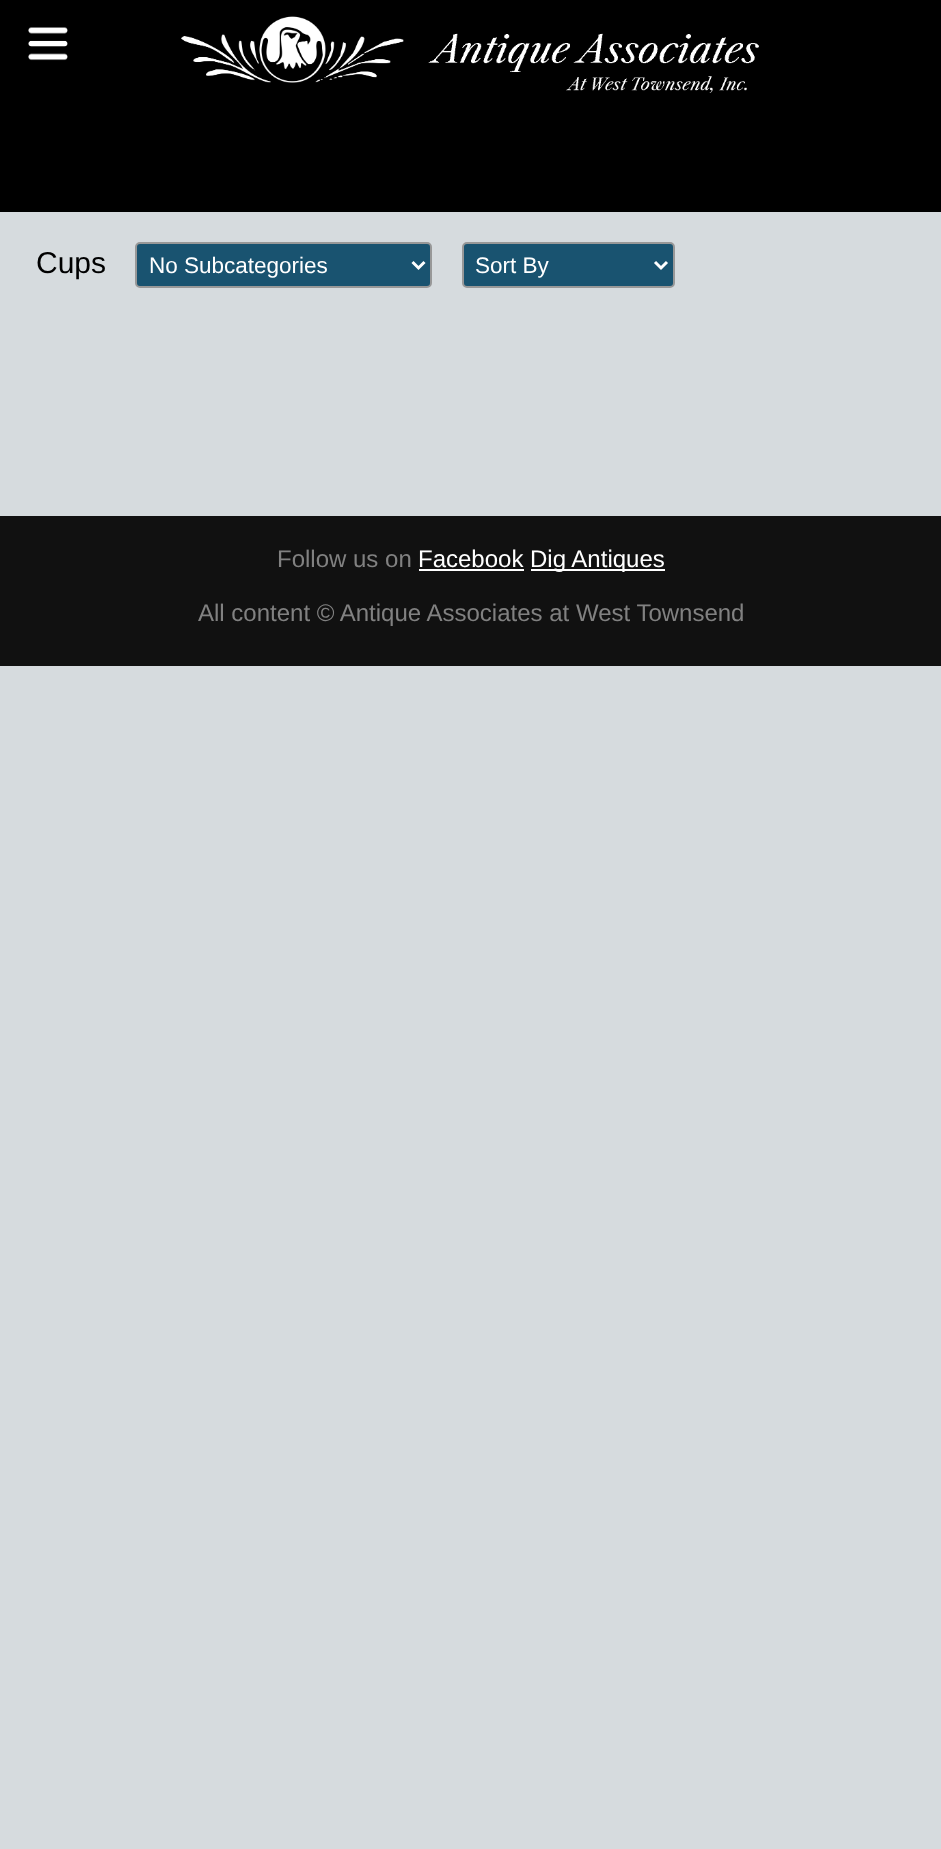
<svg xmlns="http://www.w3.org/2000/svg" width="941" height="1849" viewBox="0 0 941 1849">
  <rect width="100%" height="100%" fill="rgb(214,219,222)"/>
  <rect x="0" y="0" width="941" height="212" fill="rgb(0,0,0)"/>
  <image x="181" y="16" width="578" height="77" href="pic1.png"/>
  <image x="28" y="27" width="40" height="34" href="pic2.png"/>
  <text x="36" y="273" font-family="Liberation Sans" font-size="30" fill="rgb(0,0,0)">Cups</text>
  <rect x="136" y="243" width="295" height="44" rx="4" fill="rgb(25,83,112)" stroke="rgb(152,152,152)" stroke-width="2"/>
  <path d="M412.5 262L418.5 268L424.5 262" fill="none" stroke="rgb(255,255,255)" stroke-width="3"/>
  <text x="149" y="273" font-family="Liberation Sans" font-size="22.5" fill="rgb(255,255,255)">No Subcategories</text>
  <rect x="463" y="243" width="211" height="44" rx="4" fill="rgb(25,83,112)" stroke="rgb(152,152,152)" stroke-width="2"/>
  <path d="M655 262L661 268L667 262" fill="none" stroke="rgb(255,255,255)" stroke-width="3"/>
  <text x="475" y="273" font-family="Liberation Sans" font-size="22.5" fill="rgb(255,255,255)">Sort By</text>
  <rect x="0" y="516" width="941" height="150" fill="rgb(17,17,17)"/>
  <text x="277" y="567" font-family="Liberation Sans" font-size="24" fill="rgb(129,129,129)">Follow us on</text>
  <text x="418" y="567" font-family="Liberation Sans" font-size="24" fill="rgb(255,255,255)">Facebook</text>
  <rect x="419" y="569" width="105" height="2" fill="rgb(255,255,255)"/>
  <rect x="531" y="569" width="134" height="2" fill="rgb(255,255,255)"/>
  <text x="530" y="567" font-family="Liberation Sans" font-size="24" fill="rgb(255,255,255)">Dig Antiques</text>
  <text x="198" y="621" font-family="Liberation Sans" font-size="24" fill="rgb(129,129,129)">All content © Antique Associates at West Townsend</text>
</svg>
